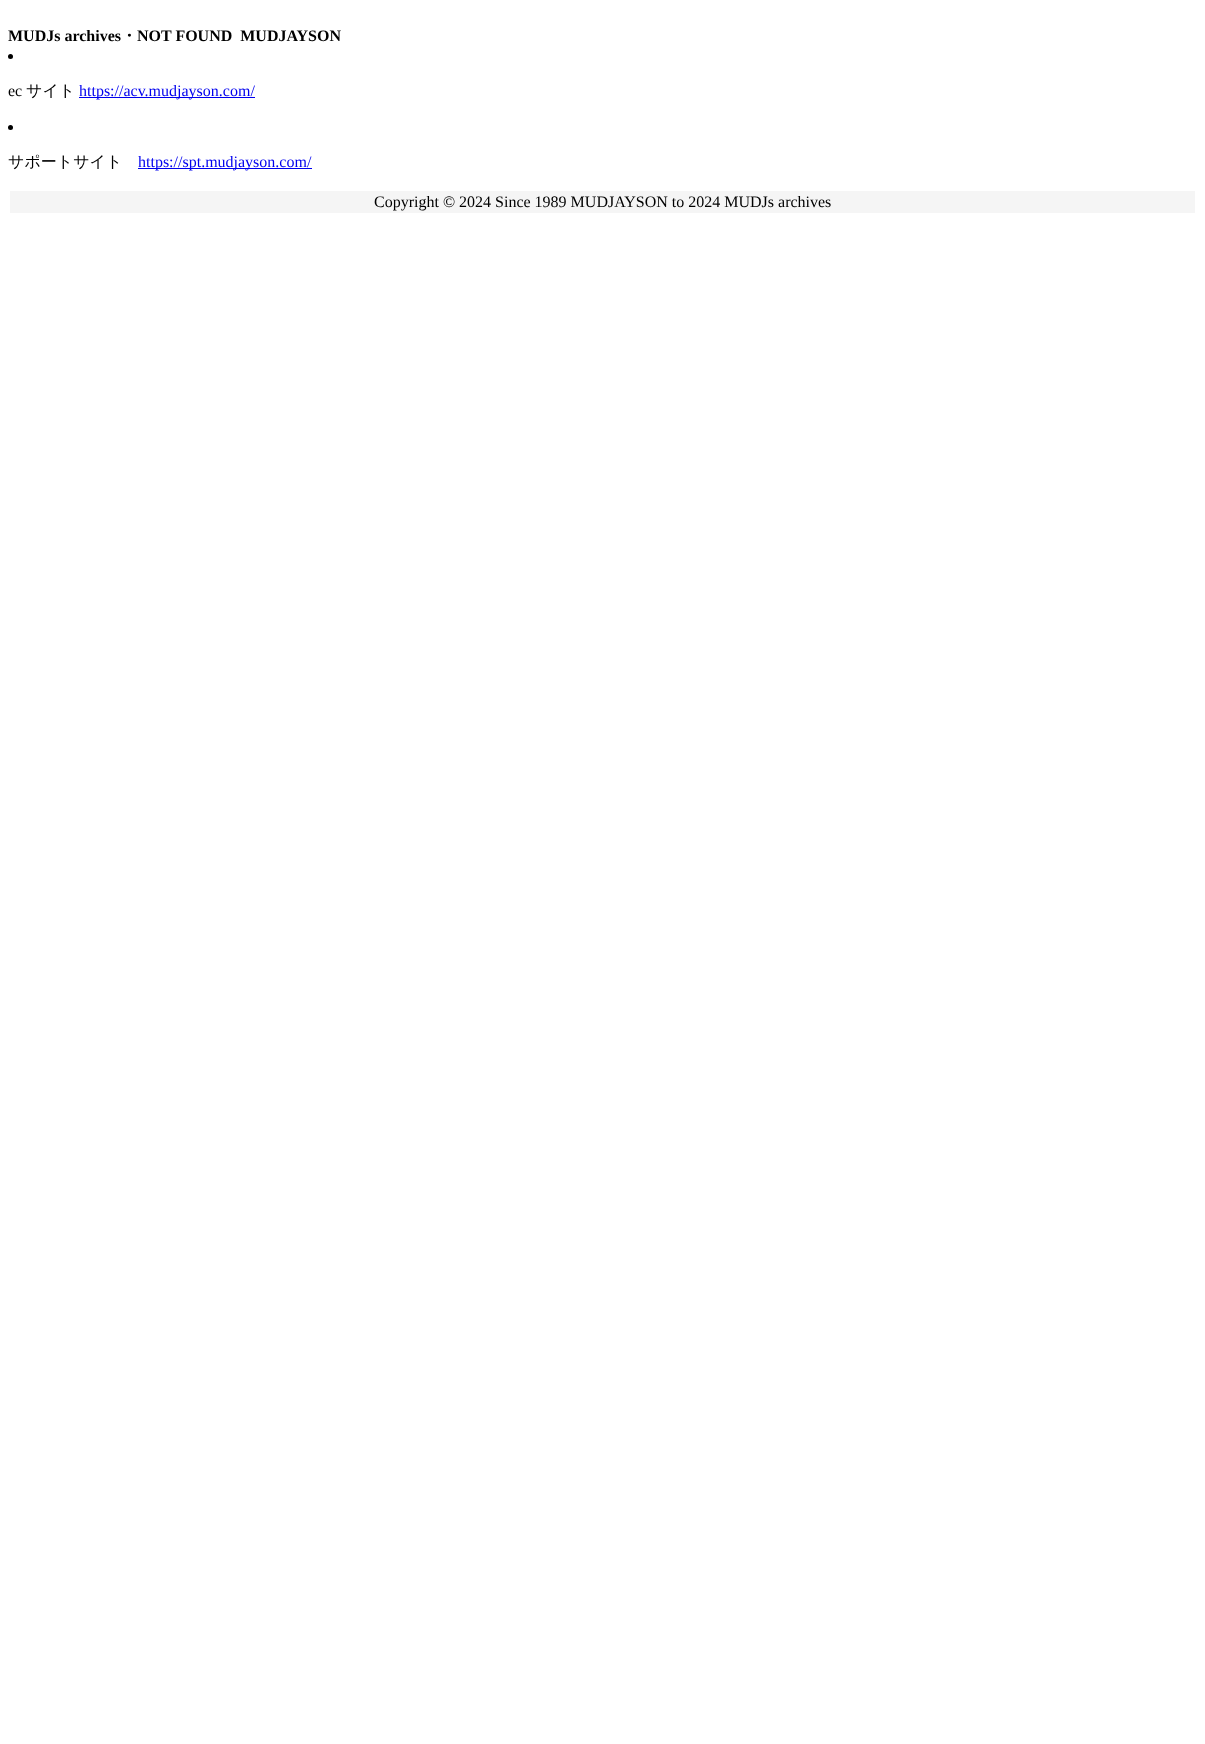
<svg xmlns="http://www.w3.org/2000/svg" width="1205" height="1744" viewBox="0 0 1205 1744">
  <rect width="100%" height="100%" fill="rgb(255,255,255)"/>
  <text x="8" y="41" font-family="Liberation Serif" font-size="16" font-weight="bold" fill="rgb(0,0,0)">MUDJs archives</text>
  <text x="121" y="41" font-family="WenQuanYi Zen Hei" font-size="16" font-weight="bold" fill="rgb(0,0,0)">・</text>
  <text x="137" y="41" font-family="Liberation Serif" font-size="16" font-weight="bold" fill="rgb(0,0,0)" xml:space="preserve">NOT FOUND  MUDJAYSON</text>
  <circle cx="10.5" cy="56.5" r="2.5" fill="rgb(0,0,0)"/>
  <text x="8" y="96" font-family="Liberation Serif" font-size="16" fill="rgb(0,0,0)">ec</text>
  <text x="26" y="96" font-family="WenQuanYi Zen Hei" font-size="16" font-weight="500" fill="rgb(0,0,0)">サイト</text>
  <rect x="79" y="97" width="176" height="1" fill="rgb(0,0,238)"/>
  <text x="79" y="96" font-family="Liberation Serif" font-size="16" fill="rgb(0,0,238)">https://acv.mudjayson.com/</text>
  <circle cx="10.5" cy="127.5" r="2.5" fill="rgb(0,0,0)"/>
  <text x="8" y="167" font-family="WenQuanYi Zen Hei" font-size="16" font-weight="500" fill="rgb(0,0,0)">サポートサイト</text>
  <rect x="138" y="168" width="174" height="1" fill="rgb(0,0,238)"/>
  <text x="138" y="167" font-family="Liberation Serif" font-size="16" fill="rgb(0,0,238)">https://spt.mudjayson.com/</text>
  <rect x="10" y="191" width="1185" height="22" fill="rgb(245,245,245)"/>
  <text x="374" y="207" font-family="Liberation Serif" font-size="16" fill="rgb(0,0,0)">Copyright © 2024 Since 1989 MUDJAYSON to 2024 MUDJs archives</text>
</svg>
